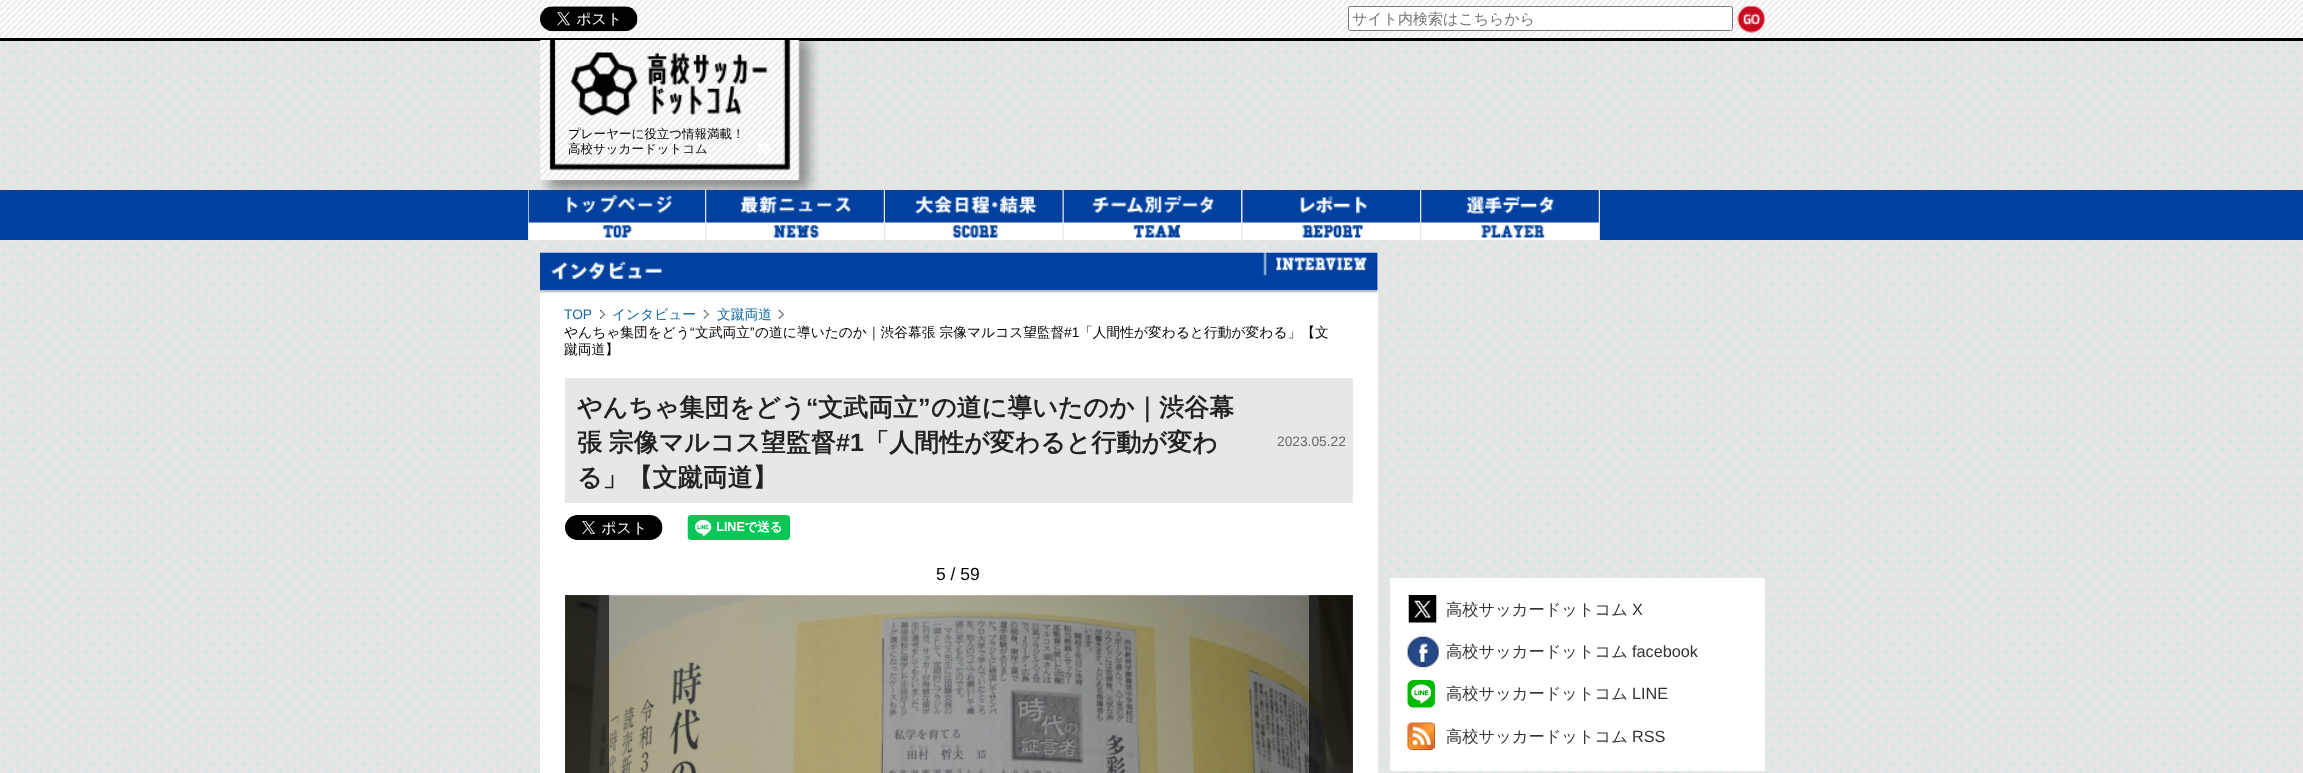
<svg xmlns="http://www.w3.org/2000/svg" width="2303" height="773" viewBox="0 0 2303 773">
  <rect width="100%" height="100%" fill="rgb(229,229,229)"/>
  <image x="1" y="42" width="2299" height="731" href="pic1.png"/>
  <image x="0" y="0" width="2303" height="38" href="pic2.png"/>
  <rect x="0" y="38" width="2303" height="3" fill="rgb(0,0,0)"/>
  <image x="540" y="6" width="98" height="26" href="pic3.png"/>
  <rect x="1348.5" y="6.5" width="384" height="24" rx="2" fill="rgb(255,255,255)" stroke="rgb(118,118,118)"/>
  <text x="1352" y="24" font-family="WenQuanYi Zen Hei" font-size="15" font-weight="500" fill="rgb(117,117,117)">サイト内検索はこちらから</text>
  <image x="1737" y="6" width="28" height="27" href="pic4.png"/>
  <image x="540" y="40" width="279" height="150" href="pic5.png"/>
  <image x="571" y="52" width="197" height="65" href="pic6.png"/>
  <g font-family="WenQuanYi Zen Hei" font-size="12.5" font-weight="500" fill="rgb(0,0,0)">
    <text>
      <tspan x="568" y="138">プレーヤーに役立つ情報満載！</tspan>
      <tspan x="568" y="153">高校サッカードットコム</tspan>
    </text>
  </g>
  <rect x="0" y="190" width="2303" height="50" fill="rgb(0,65,160)"/>
  <rect x="528" y="190" width="1" height="50" fill="rgb(230,230,230)"/>
  <image x="528" y="190" width="177" height="50" href="pic7.png"/>
  <rect x="705" y="190" width="359" height="50" fill="rgb(230,230,230)"/>
  <image x="706" y="190" width="178" height="50" href="pic8.png"/>
  <image x="885" y="190" width="178" height="50" href="pic9.png"/>
  <image x="1063" y="190" width="178" height="50" href="pic10.png"/>
  <rect x="1241" y="190" width="2" height="50" fill="rgb(230,230,230)"/>
  <image x="1242" y="190" width="178" height="50" href="pic11.png"/>
  <rect x="1420" y="190" width="180" height="50" fill="rgb(230,230,230)"/>
  <image x="1421" y="190" width="178" height="50" href="pic12.png"/>
  <rect x="540" y="253" width="838" height="520" fill="rgb(255,255,255)"/>
  <image x="540" y="252" width="838" height="41" href="pic13.png"/>
  <image x="600" y="310" width="6" height="9" href="pic14.png"/>
  <text x="564" y="319" font-family="Liberation Sans" font-size="13.75" fill="rgb(16,104,168)">TOP</text>
  <image x="703" y="310" width="6" height="9" href="pic15.png"/>
  <text x="612" y="319" font-family="WenQuanYi Zen Hei" font-size="13.75" font-weight="500" fill="rgb(16,104,168)">インタビュー</text>
  <image x="778" y="310" width="6" height="9" href="pic15.png"/>
  <text x="717" y="319" font-family="WenQuanYi Zen Hei" font-size="13.75" font-weight="500" fill="rgb(16,104,168)">文蹴両道</text>
  <text x="564" y="337" font-family="WenQuanYi Zen Hei" font-size="13.75" font-weight="500" fill="rgb(0,0,0)">やんちゃ集団をどう</text>
  <text x="690" y="337" font-family="Liberation Sans" font-size="13.75" fill="rgb(0,0,0)">“</text>
  <text x="695" y="337" font-family="WenQuanYi Zen Hei" font-size="13.75" font-weight="500" fill="rgb(0,0,0)">文武両立</text>
  <text x="750" y="337" font-family="Liberation Sans" font-size="13.75" fill="rgb(0,0,0)">”</text>
  <text x="755" y="337" font-family="WenQuanYi Zen Hei" font-size="13.75" font-weight="500" fill="rgb(0,0,0)">の道に導いたのか｜渋谷幕張 宗像マルコス望監督</text>
  <text x="1064" y="337" font-family="Liberation Sans" font-size="13.75" fill="rgb(0,0,0)">#1</text>
  <g font-family="WenQuanYi Zen Hei" font-size="13.75" font-weight="500" fill="rgb(0,0,0)">
    <text x="1079" y="337">「人間性が変わると行動が変わる」【文</text>
    <text x="564" y="354">蹴両道】</text>
  </g>
  <rect x="565" y="378" width="788" height="125" fill="rgb(231,231,231)"/>
  <text x="577" y="416" font-family="WenQuanYi Zen Hei" font-size="25" font-weight="bold" fill="rgb(34,34,34)">やんちゃ集団をどう</text>
  <text x="806" y="416" font-family="Liberation Sans" font-size="25" font-weight="bold" fill="rgb(34,34,34)">“</text>
  <text x="818" y="416" font-family="WenQuanYi Zen Hei" font-size="25" font-weight="bold" fill="rgb(34,34,34)">文武両立</text>
  <text x="918" y="416" font-family="Liberation Sans" font-size="25" font-weight="bold" fill="rgb(34,34,34)">”</text>
  <g font-family="WenQuanYi Zen Hei" font-size="25" font-weight="bold" fill="rgb(34,34,34)">
    <text x="931" y="416">の道に導いたのか｜渋谷幕</text>
    <text x="577" y="451" word-spacing="-1">張 宗像マルコス望監督</text>
  </g>
  <text x="836" y="451" font-family="Liberation Sans" font-size="25" font-weight="bold" fill="rgb(34,34,34)">#1</text>
  <g font-family="WenQuanYi Zen Hei" font-size="25" font-weight="bold" fill="rgb(34,34,34)">
    <text x="864" y="451">「人間性が変わると行動が変わ</text>
    <text x="577" y="486">る」【文蹴両道】</text>
  </g>
  <text x="1277" y="446" font-family="Liberation Sans" font-size="13.75" fill="rgb(105,105,105)">2023.05.22</text>
  <image x="565" y="515" width="98" height="25" href="pic16.png"/>
  <image x="687" y="515" width="103" height="25" href="pic17.png"/>
  <text x="936" y="580" font-family="Liberation Sans" font-size="17.5" fill="rgb(0,0,0)">5 / 59</text>
  <image x="565" y="595" width="788" height="178" href="pic18.png"/>
  <rect x="565" y="595" width="44" height="178" fill="rgba(0,0,0,0.65)"/>
  <rect x="1309" y="595" width="44" height="178" fill="rgba(0,0,0,0.65)"/>
  <rect x="1390" y="578" width="375" height="193" fill="rgb(255,255,255)"/>
  <image x="1408" y="595" width="29" height="28" href="pic19.png"/>
  <text x="1446" y="615" font-family="WenQuanYi Zen Hei" font-size="16.25" font-weight="500" fill="rgb(51,51,51)">高校サッカードットコム</text>
  <text x="1632" y="615" font-family="Liberation Sans" font-size="16.25" fill="rgb(51,51,51)">X</text>
  <image x="1407" y="636" width="32" height="32" href="pic20.png"/>
  <text x="1446" y="657" font-family="WenQuanYi Zen Hei" font-size="16.25" font-weight="500" fill="rgb(51,51,51)">高校サッカードットコム</text>
  <text x="1632" y="657" font-family="Liberation Sans" font-size="16.25" fill="rgb(51,51,51)">facebook</text>
  <image x="1407" y="680" width="28" height="28" href="pic21.png"/>
  <text x="1446" y="699" font-family="WenQuanYi Zen Hei" font-size="16.25" font-weight="500" fill="rgb(51,51,51)">高校サッカードットコム</text>
  <text x="1632" y="699" font-family="Liberation Sans" font-size="16.25" fill="rgb(51,51,51)">LINE</text>
  <image x="1407" y="722" width="28" height="28" href="pic22.png"/>
  <text x="1446" y="742" font-family="WenQuanYi Zen Hei" font-size="16.25" font-weight="500" fill="rgb(51,51,51)">高校サッカードットコム</text>
  <text x="1632" y="742" font-family="Liberation Sans" font-size="16.25" fill="rgb(51,51,51)">RSS</text>
</svg>
